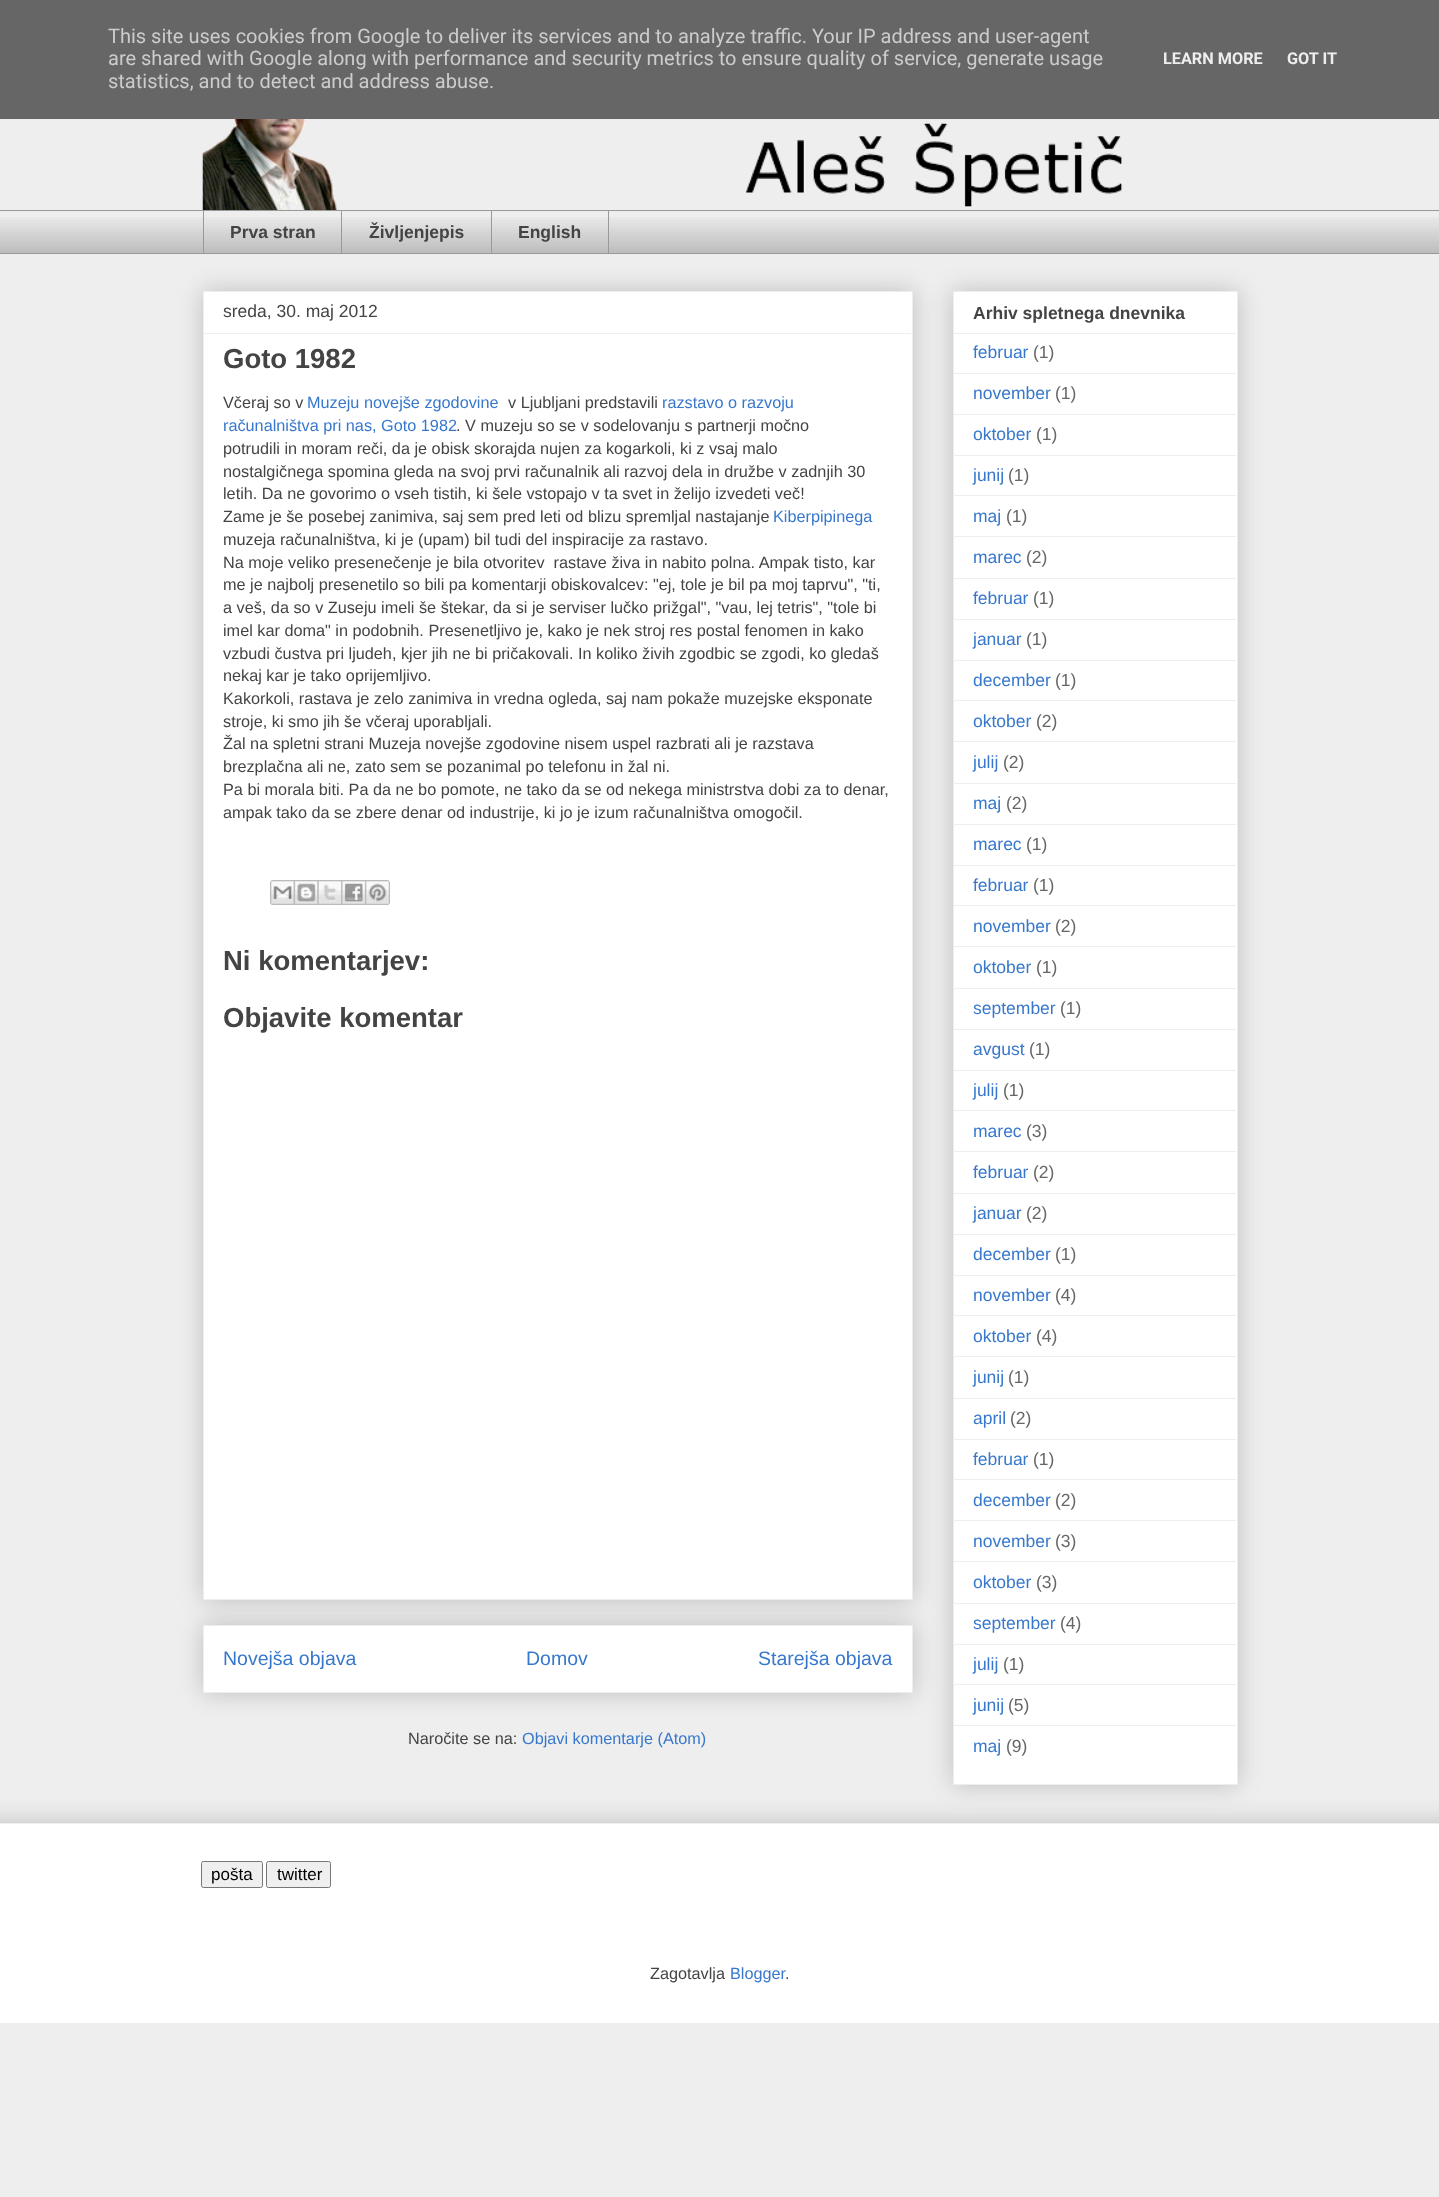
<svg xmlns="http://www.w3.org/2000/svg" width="1439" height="2197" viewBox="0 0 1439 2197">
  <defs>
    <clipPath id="clip1"><rect x="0" y="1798" width="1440" height="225"/></clipPath>
  </defs>
  <rect width="100%" height="100%" fill="rgb(238,238,238)"/>
  <rect x="0" y="0" width="1439" height="119" fill="rgb(102,102,102)"/>
  <g font-family="Roboto" font-size="20" fill="rgb(204,204,204)">
    <text>
      <tspan x="108" y="43">This site uses cookies from Google to deliver its services and to analyze traffic. Your IP address and user-agent</tspan>
      <tspan x="108" y="65">are shared with Google along with performance and security metrics to ensure quality of service, generate usage</tspan>
      <tspan x="108" y="88">statistics, and to detect and address abuse.</tspan>
    </text>
  </g>
  <g font-family="Roboto" font-size="16.25" font-weight="bold" fill="rgb(238,238,238)">
    <text x="1163" y="64">LEARN MORE</text>
    <text x="1287" y="64">GOT IT</text>
  </g>
  <image x="202" y="119" width="921" height="91" href="pic1.png"/>
  <image x="0" y="217" width="1439" height="36" href="pic2.png"/>
  <rect x="0" y="210" width="1439" height="1" fill="rgb(153,153,153)"/>
  <rect x="203" y="210" width="1" height="44" fill="rgb(153,153,153)"/>
  <text x="230" y="238" font-family="Liberation Sans" font-size="17.5" font-weight="bold" fill="rgb(68,68,68)">Prva stran</text>
  <rect x="341" y="210" width="1" height="44" fill="rgb(153,153,153)"/>
  <text x="369" y="238" font-family="Liberation Sans" font-size="17.5" font-weight="bold" fill="rgb(68,68,68)">Življenjepis</text>
  <rect x="491.5" y="210.5" width="117" height="43" fill="none" stroke="rgb(153,153,153)"/>
  <text x="518" y="238" font-family="Liberation Sans" font-size="17.5" font-weight="bold" fill="rgb(68,68,68)">English</text>
  <rect x="0" y="253" width="1439" height="1" fill="rgb(153,153,153)"/>
  <rect x="203" y="1625" width="710" height="68" fill="rgba(0,0,0,0.2)" filter="blur(12.5px)"/>
  <rect x="203.5" y="1625.5" width="709" height="67" fill="rgb(255,255,255)" stroke="rgb(238,238,238)"/>
  <rect x="203" y="291" width="710" height="1309" fill="rgba(0,0,0,0.2)" filter="blur(12.5px)"/>
  <rect x="203.5" y="291.5" width="709" height="1308" fill="rgb(255,255,255)" stroke="rgb(238,238,238)"/>
  <text x="223" y="317" font-family="Liberation Sans" font-size="17.5" fill="rgb(68,68,68)">sreda, 30. maj 2012</text>
  <rect x="204" y="333" width="707" height="1" fill="rgb(238,238,238)"/>
  <text x="223" y="368" font-family="Liberation Sans" font-size="27.5" font-weight="bold" fill="rgb(68,68,68)">Goto 1982</text>
  <text x="223" y="408" font-family="Liberation Sans" font-size="16.25" fill="rgb(68,68,68)">Včeraj so v</text>
  <text x="307" y="408" font-family="Liberation Sans" font-size="16.25" fill="rgb(55,120,205)">Muzeju novejše zgodovine</text>
  <text x="508" y="408" font-family="Liberation Sans" font-size="16.25" fill="rgb(68,68,68)">v Ljubljani predstavili</text>
  <g font-family="Liberation Sans" font-size="16.25" fill="rgb(55,120,205)">
    <text x="662" y="408">razstavo o razvoju</text>
    <text x="223" y="431">računalništva pri nas, Goto 1982</text>
  </g>
  <g font-family="Liberation Sans" font-size="16.25" fill="rgb(68,68,68)">
    <text x="456" y="431">. V muzeju so se v sodelovanju s partnerji močno</text>
    <text>
      <tspan x="223" y="454">potrudili in moram reči, da je obisk skorajda nujen za kogarkoli, ki z vsaj malo</tspan>
      <tspan x="223" y="477">nostalgičnega spomina gleda na svoj prvi računalnik ali razvoj dela in družbe v zadnjih 30</tspan>
      <tspan x="223" y="499">letih. Da ne govorimo o vseh tistih, ki šele vstopajo v ta svet in želijo izvedeti več!</tspan>
      <tspan x="223" y="522">Zame je še posebej zanimiva, saj sem pred leti od blizu spremljal nastajanje</tspan>
    </text>
  </g>
  <text x="773" y="522" font-family="Liberation Sans" font-size="16.25" fill="rgb(55,120,205)">Kiberpipinega</text>
  <g font-family="Liberation Sans" font-size="16.25" fill="rgb(68,68,68)">
    <text xml:space="preserve"><tspan x="223" y="545">muzeja računalništva, ki je (upam) bil tudi del inspiracije za rastavo.</tspan><tspan x="223" y="568">Na moje veliko presenečenje je bila otvoritev  rastave živa in nabito polna. Ampak tisto, kar</tspan><tspan x="223" y="590">me je najbolj presenetilo so bili pa komentarji obiskovalcev: "ej, tole je bil pa moj taprvu", "ti,</tspan><tspan x="223" y="613">a veš, da so v Zuseju imeli še štekar, da si je serviser lučko prižgal", "vau, lej tetris", "tole bi</tspan><tspan x="223" y="636">imel kar doma" in podobnih. Presenetljivo je, kako je nek stroj res postal fenomen in kako</tspan><tspan x="223" y="659">vzbudi čustva pri ljudeh, kjer jih ne bi pričakovali. In koliko živih zgodbic se zgodi, ko gledaš</tspan><tspan x="223" y="681">nekaj kar je tako oprijemljivo.</tspan><tspan x="223" y="704">Kakorkoli, rastava je zelo zanimiva in vredna ogleda, saj nam pokaže muzejske eksponate</tspan><tspan x="223" y="727">stroje, ki smo jih še včeraj uporabljali.</tspan><tspan x="223" y="749">Žal na spletni strani Muzeja novejše zgodovine nisem uspel razbrati ali je razstava</tspan><tspan x="223" y="772">brezplačna ali ne, zato sem se pozanimal po telefonu in žal ni.</tspan><tspan x="223" y="795">Pa bi morala biti. Pa da ne bo pomote, ne tako da se od nekega ministrstva dobi za to denar,</tspan><tspan x="223" y="818">ampak tako da se zbere denar od industrije, ki jo je izum računalništva omogočil.</tspan></text>
  </g>
  <image x="270" y="880" width="24" height="25" href="pic3.png"/>
  <image x="293" y="880" width="25" height="25" href="pic4.png"/>
  <image x="317" y="880" width="25" height="25" href="pic5.png"/>
  <image x="341" y="880" width="24" height="25" href="pic6.png"/>
  <image x="365" y="880" width="25" height="25" href="pic7.png"/>
  <g font-family="Liberation Sans" font-size="27.5" font-weight="bold" fill="rgb(68,68,68)">
    <text x="223" y="970">Ni komentarjev:</text>
    <text x="223" y="1027">Objavite komentar</text>
  </g>
  <g font-family="Liberation Sans" font-size="19.5" fill="rgb(55,120,205)">
    <text x="223" y="1665">Novejša objava</text>
    <text x="526" y="1665">Domov</text>
    <text x="758" y="1665">Starejša objava</text>
  </g>
  <text x="408" y="1744" font-family="Liberation Sans" font-size="16.25" fill="rgb(68,68,68)">Naročite se na:</text>
  <text x="522" y="1744" font-family="Liberation Sans" font-size="16.25" fill="rgb(55,120,205)">Objavi komentarje (Atom)</text>
  <rect x="953" y="291" width="285" height="1494" fill="rgba(0,0,0,0.2)" filter="blur(12.5px)"/>
  <rect x="953.5" y="291.5" width="284" height="1493" fill="rgb(255,255,255)" stroke="rgb(238,238,238)"/>
  <text x="973" y="319" font-family="Liberation Sans" font-size="17.5" font-weight="bold" fill="rgb(68,68,68)">Arhiv spletnega dnevnika</text>
  <rect x="954" y="333" width="282" height="1" fill="rgb(238,238,238)"/>
  <text x="973" y="358" font-family="Liberation Sans" font-size="17.5" fill="rgb(55,120,205)">februar</text>
  <text x="1033" y="358" font-family="Liberation Sans" font-size="17.5" fill="rgb(102,102,102)">(1)</text>
  <rect x="954" y="373" width="282" height="1" fill="rgb(238,238,238)"/>
  <text x="973" y="399" font-family="Liberation Sans" font-size="17.5" fill="rgb(55,120,205)">november</text>
  <text x="1055" y="399" font-family="Liberation Sans" font-size="17.5" fill="rgb(102,102,102)">(1)</text>
  <rect x="954" y="414" width="282" height="1" fill="rgb(238,238,238)"/>
  <text x="973" y="440" font-family="Liberation Sans" font-size="17.5" fill="rgb(55,120,205)">oktober</text>
  <text x="1036" y="440" font-family="Liberation Sans" font-size="17.5" fill="rgb(102,102,102)">(1)</text>
  <rect x="954" y="455" width="282" height="1" fill="rgb(238,238,238)"/>
  <text x="973" y="481" font-family="Liberation Sans" font-size="17.5" fill="rgb(55,120,205)">junij</text>
  <text x="1008" y="481" font-family="Liberation Sans" font-size="17.5" fill="rgb(102,102,102)">(1)</text>
  <rect x="954" y="495" width="282" height="1" fill="rgb(238,238,238)"/>
  <text x="973" y="522" font-family="Liberation Sans" font-size="17.5" fill="rgb(55,120,205)">maj</text>
  <text x="1006" y="522" font-family="Liberation Sans" font-size="17.5" fill="rgb(102,102,102)">(1)</text>
  <rect x="954" y="536" width="282" height="1" fill="rgb(238,238,238)"/>
  <text x="973" y="563" font-family="Liberation Sans" font-size="17.5" fill="rgb(55,120,205)">marec</text>
  <text x="1026" y="563" font-family="Liberation Sans" font-size="17.5" fill="rgb(102,102,102)">(2)</text>
  <rect x="954" y="578" width="282" height="1" fill="rgb(238,238,238)"/>
  <text x="973" y="604" font-family="Liberation Sans" font-size="17.5" fill="rgb(55,120,205)">februar</text>
  <text x="1033" y="604" font-family="Liberation Sans" font-size="17.5" fill="rgb(102,102,102)">(1)</text>
  <rect x="954" y="619" width="282" height="1" fill="rgb(238,238,238)"/>
  <text x="973" y="645" font-family="Liberation Sans" font-size="17.5" fill="rgb(55,120,205)">januar</text>
  <text x="1026" y="645" font-family="Liberation Sans" font-size="17.5" fill="rgb(102,102,102)">(1)</text>
  <rect x="954" y="660" width="282" height="1" fill="rgb(238,238,238)"/>
  <text x="973" y="686" font-family="Liberation Sans" font-size="17.5" fill="rgb(55,120,205)">december</text>
  <text x="1055" y="686" font-family="Liberation Sans" font-size="17.5" fill="rgb(102,102,102)">(1)</text>
  <rect x="954" y="700" width="282" height="1" fill="rgb(238,238,238)"/>
  <text x="973" y="727" font-family="Liberation Sans" font-size="17.5" fill="rgb(55,120,205)">oktober</text>
  <text x="1036" y="727" font-family="Liberation Sans" font-size="17.5" fill="rgb(102,102,102)">(2)</text>
  <rect x="954" y="741" width="282" height="1" fill="rgb(238,238,238)"/>
  <text x="973" y="768" font-family="Liberation Sans" font-size="17.5" fill="rgb(55,120,205)">julij</text>
  <text x="1003" y="768" font-family="Liberation Sans" font-size="17.5" fill="rgb(102,102,102)">(2)</text>
  <rect x="954" y="783" width="282" height="1" fill="rgb(238,238,238)"/>
  <text x="973" y="809" font-family="Liberation Sans" font-size="17.5" fill="rgb(55,120,205)">maj</text>
  <text x="1006" y="809" font-family="Liberation Sans" font-size="17.5" fill="rgb(102,102,102)">(2)</text>
  <rect x="954" y="824" width="282" height="1" fill="rgb(238,238,238)"/>
  <text x="973" y="850" font-family="Liberation Sans" font-size="17.5" fill="rgb(55,120,205)">marec</text>
  <text x="1026" y="850" font-family="Liberation Sans" font-size="17.5" fill="rgb(102,102,102)">(1)</text>
  <rect x="954" y="865" width="282" height="1" fill="rgb(238,238,238)"/>
  <text x="973" y="891" font-family="Liberation Sans" font-size="17.5" fill="rgb(55,120,205)">februar</text>
  <text x="1033" y="891" font-family="Liberation Sans" font-size="17.5" fill="rgb(102,102,102)">(1)</text>
  <rect x="954" y="905" width="282" height="1" fill="rgb(238,238,238)"/>
  <text x="973" y="932" font-family="Liberation Sans" font-size="17.5" fill="rgb(55,120,205)">november</text>
  <text x="1055" y="932" font-family="Liberation Sans" font-size="17.5" fill="rgb(102,102,102)">(2)</text>
  <rect x="954" y="946" width="282" height="1" fill="rgb(238,238,238)"/>
  <text x="973" y="973" font-family="Liberation Sans" font-size="17.5" fill="rgb(55,120,205)">oktober</text>
  <text x="1036" y="973" font-family="Liberation Sans" font-size="17.5" fill="rgb(102,102,102)">(1)</text>
  <rect x="954" y="988" width="282" height="1" fill="rgb(238,238,238)"/>
  <text x="973" y="1014" font-family="Liberation Sans" font-size="17.5" fill="rgb(55,120,205)">september</text>
  <text x="1060" y="1014" font-family="Liberation Sans" font-size="17.5" fill="rgb(102,102,102)">(1)</text>
  <rect x="954" y="1029" width="282" height="1" fill="rgb(238,238,238)"/>
  <text x="973" y="1055" font-family="Liberation Sans" font-size="17.5" fill="rgb(55,120,205)">avgust</text>
  <text x="1029" y="1055" font-family="Liberation Sans" font-size="17.5" fill="rgb(102,102,102)">(1)</text>
  <rect x="954" y="1070" width="282" height="1" fill="rgb(238,238,238)"/>
  <text x="973" y="1096" font-family="Liberation Sans" font-size="17.5" fill="rgb(55,120,205)">julij</text>
  <text x="1003" y="1096" font-family="Liberation Sans" font-size="17.5" fill="rgb(102,102,102)">(1)</text>
  <rect x="954" y="1110" width="282" height="1" fill="rgb(238,238,238)"/>
  <text x="973" y="1137" font-family="Liberation Sans" font-size="17.5" fill="rgb(55,120,205)">marec</text>
  <text x="1026" y="1137" font-family="Liberation Sans" font-size="17.5" fill="rgb(102,102,102)">(3)</text>
  <rect x="954" y="1151" width="282" height="1" fill="rgb(238,238,238)"/>
  <text x="973" y="1178" font-family="Liberation Sans" font-size="17.5" fill="rgb(55,120,205)">februar</text>
  <text x="1033" y="1178" font-family="Liberation Sans" font-size="17.5" fill="rgb(102,102,102)">(2)</text>
  <rect x="954" y="1193" width="282" height="1" fill="rgb(238,238,238)"/>
  <text x="973" y="1219" font-family="Liberation Sans" font-size="17.5" fill="rgb(55,120,205)">januar</text>
  <text x="1026" y="1219" font-family="Liberation Sans" font-size="17.5" fill="rgb(102,102,102)">(2)</text>
  <rect x="954" y="1234" width="282" height="1" fill="rgb(238,238,238)"/>
  <text x="973" y="1260" font-family="Liberation Sans" font-size="17.5" fill="rgb(55,120,205)">december</text>
  <text x="1055" y="1260" font-family="Liberation Sans" font-size="17.5" fill="rgb(102,102,102)">(1)</text>
  <rect x="954" y="1275" width="282" height="1" fill="rgb(238,238,238)"/>
  <text x="973" y="1301" font-family="Liberation Sans" font-size="17.5" fill="rgb(55,120,205)">november</text>
  <text x="1055" y="1301" font-family="Liberation Sans" font-size="17.5" fill="rgb(102,102,102)">(4)</text>
  <rect x="954" y="1315" width="282" height="1" fill="rgb(238,238,238)"/>
  <text x="973" y="1342" font-family="Liberation Sans" font-size="17.5" fill="rgb(55,120,205)">oktober</text>
  <text x="1036" y="1342" font-family="Liberation Sans" font-size="17.5" fill="rgb(102,102,102)">(4)</text>
  <rect x="954" y="1356" width="282" height="1" fill="rgb(238,238,238)"/>
  <text x="973" y="1383" font-family="Liberation Sans" font-size="17.5" fill="rgb(55,120,205)">junij</text>
  <text x="1008" y="1383" font-family="Liberation Sans" font-size="17.5" fill="rgb(102,102,102)">(1)</text>
  <rect x="954" y="1398" width="282" height="1" fill="rgb(238,238,238)"/>
  <text x="973" y="1424" font-family="Liberation Sans" font-size="17.5" fill="rgb(55,120,205)">april</text>
  <text x="1010" y="1424" font-family="Liberation Sans" font-size="17.5" fill="rgb(102,102,102)">(2)</text>
  <rect x="954" y="1439" width="282" height="1" fill="rgb(238,238,238)"/>
  <text x="973" y="1465" font-family="Liberation Sans" font-size="17.5" fill="rgb(55,120,205)">februar</text>
  <text x="1033" y="1465" font-family="Liberation Sans" font-size="17.5" fill="rgb(102,102,102)">(1)</text>
  <rect x="954" y="1479" width="282" height="1" fill="rgb(238,238,238)"/>
  <text x="973" y="1506" font-family="Liberation Sans" font-size="17.5" fill="rgb(55,120,205)">december</text>
  <text x="1055" y="1506" font-family="Liberation Sans" font-size="17.5" fill="rgb(102,102,102)">(2)</text>
  <rect x="954" y="1520" width="282" height="1" fill="rgb(238,238,238)"/>
  <text x="973" y="1547" font-family="Liberation Sans" font-size="17.5" fill="rgb(55,120,205)">november</text>
  <text x="1055" y="1547" font-family="Liberation Sans" font-size="17.5" fill="rgb(102,102,102)">(3)</text>
  <rect x="954" y="1561" width="282" height="1" fill="rgb(238,238,238)"/>
  <text x="973" y="1588" font-family="Liberation Sans" font-size="17.5" fill="rgb(55,120,205)">oktober</text>
  <text x="1036" y="1588" font-family="Liberation Sans" font-size="17.5" fill="rgb(102,102,102)">(3)</text>
  <rect x="954" y="1603" width="282" height="1" fill="rgb(238,238,238)"/>
  <text x="973" y="1629" font-family="Liberation Sans" font-size="17.5" fill="rgb(55,120,205)">september</text>
  <text x="1060" y="1629" font-family="Liberation Sans" font-size="17.5" fill="rgb(102,102,102)">(4)</text>
  <rect x="954" y="1644" width="282" height="1" fill="rgb(238,238,238)"/>
  <text x="973" y="1670" font-family="Liberation Sans" font-size="17.5" fill="rgb(55,120,205)">julij</text>
  <text x="1003" y="1670" font-family="Liberation Sans" font-size="17.5" fill="rgb(102,102,102)">(1)</text>
  <rect x="954" y="1684" width="282" height="1" fill="rgb(238,238,238)"/>
  <text x="973" y="1711" font-family="Liberation Sans" font-size="17.5" fill="rgb(55,120,205)">junij</text>
  <text x="1008" y="1711" font-family="Liberation Sans" font-size="17.5" fill="rgb(102,102,102)">(5)</text>
  <rect x="954" y="1725" width="282" height="1" fill="rgb(238,238,238)"/>
  <text x="973" y="1752" font-family="Liberation Sans" font-size="17.5" fill="rgb(55,120,205)">maj</text>
  <text x="1006" y="1752" font-family="Liberation Sans" font-size="17.5" fill="rgb(102,102,102)">(9)</text>
  <g clip-path="url(#clip1)">
    <rect x="-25" y="1823" width="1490" height="200" fill="rgba(0,0,0,0.2)" filter="blur(12.5px)"/>
  </g>
  <rect x="0" y="1824" width="1439" height="199" fill="rgb(255,255,255)"/>
  <rect x="0" y="1823" width="1439" height="1" fill="rgb(238,238,238)"/>
  <rect x="201.5" y="1861.5" width="61" height="26" rx="2" fill="rgb(239,239,239)" stroke="rgb(118,118,118)"/>
  <text x="211" y="1880" font-family="Liberation Sans" font-size="17" fill="rgb(0,0,0)">pošta</text>
  <rect x="266.5" y="1861.5" width="64" height="26" rx="2" fill="rgb(239,239,239)" stroke="rgb(118,118,118)"/>
  <text x="277" y="1880" font-family="Liberation Sans" font-size="17" fill="rgb(0,0,0)">twitter</text>
  <text x="650" y="1979" font-family="Liberation Sans" font-size="16.25" fill="rgb(68,68,68)">Zagotavlja</text>
  <text x="730" y="1979" font-family="Liberation Sans" font-size="16.25" fill="rgb(55,120,205)">Blogger</text>
  <text x="785" y="1979" font-family="Liberation Sans" font-size="16.25" fill="rgb(68,68,68)">.</text>
</svg>
